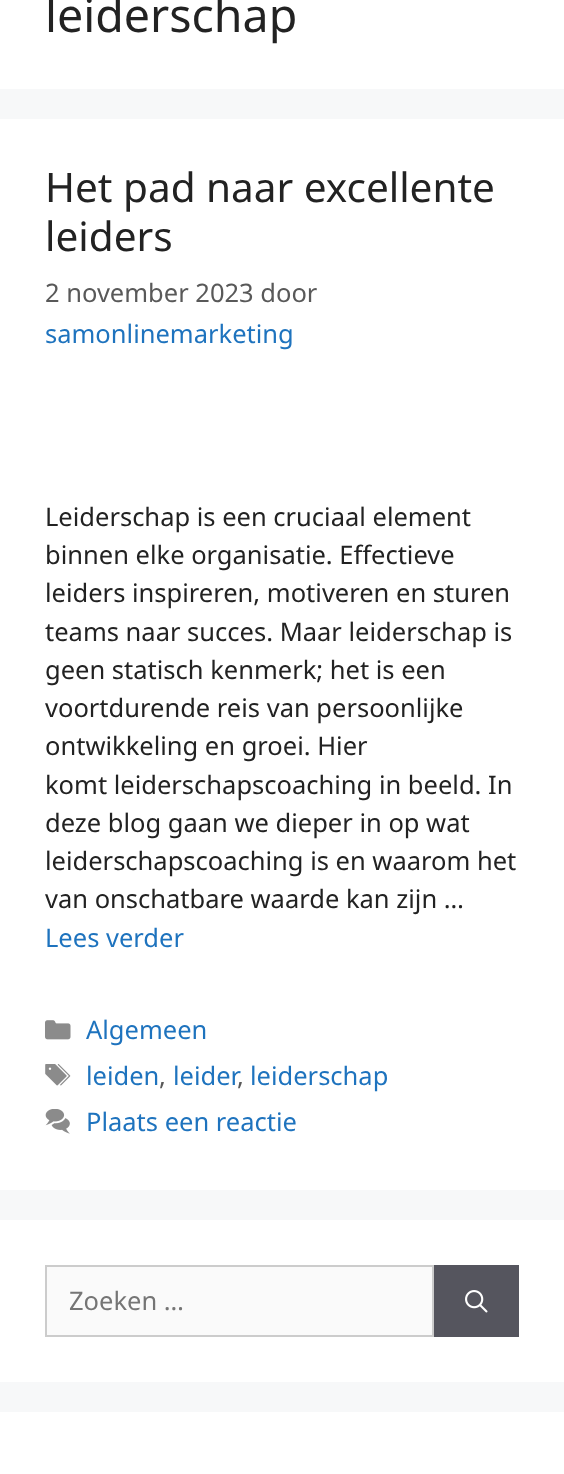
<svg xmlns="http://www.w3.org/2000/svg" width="564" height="1474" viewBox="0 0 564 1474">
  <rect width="100%" height="100%" fill="rgb(247,248,249)"/>
  <rect x="0" y="0" width="564" height="89" fill="rgb(255,255,255)"/>
  <text x="45" y="32" font-family="Noto Sans" font-size="46.5" fill="rgb(34,34,34)">leiderschap</text>
  <rect x="0" y="119" width="564" height="1071" fill="rgb(255,255,255)"/>
  <g font-family="Noto Sans" font-size="40.5" fill="rgb(34,34,34)">
    <text>
      <tspan x="45" y="202">Het pad naar excellente</tspan>
      <tspan x="45" y="251">leiders</tspan>
    </text>
  </g>
  <text x="45" y="302" font-family="Noto Sans" font-size="25.5" fill="rgb(89,89,89)">2 november 2023 door</text>
  <text x="45" y="343" font-family="Noto Sans" font-size="25.5" fill="rgb(30,115,190)">samonlinemarketing</text>
  <g font-family="Noto Sans" font-size="25.5" fill="rgb(34,34,34)">
    <text>
      <tspan x="45" y="526">Leiderschap is een cruciaal element</tspan>
      <tspan x="45" y="564">binnen elke organisatie. Effectieve</tspan>
      <tspan x="45" y="602">leiders inspireren, motiveren en sturen</tspan>
      <tspan x="45" y="641">teams naar succes. Maar leiderschap is</tspan>
      <tspan x="45" y="679">geen statisch kenmerk; het is een</tspan>
      <tspan x="45" y="717">voortdurende reis van persoonlijke</tspan>
      <tspan x="45" y="755">ontwikkeling en groei. Hier</tspan>
      <tspan x="45" y="794">komt leiderschapscoaching in beeld. In</tspan>
      <tspan x="45" y="832">deze blog gaan we dieper in op wat</tspan>
      <tspan x="45" y="870">leiderschapscoaching is en waarom het</tspan>
      <tspan x="45" y="908">van onschatbare waarde kan zijn …</tspan>
    </text>
  </g>
  <text x="45" y="947" font-family="Noto Sans" font-size="25.5" fill="rgb(30,115,190)">Lees verder</text>
  <image x="45" y="1020" width="26" height="20" href="pic1.png"/>
  <text x="86" y="1039" font-family="Noto Sans" font-size="25.5" fill="rgb(30,115,190)">Algemeen</text>
  <image x="45" y="1064" width="26" height="22" href="pic2.png"/>
  <text x="86" y="1085" font-family="Noto Sans" font-size="25.5" fill="rgb(30,115,190)">leiden</text>
  <text x="159" y="1085" font-family="Noto Sans" font-size="25.5" fill="rgb(89,89,89)">,</text>
  <g font-family="Noto Sans" font-size="25.5" fill="rgb(30,115,190)">
    <text x="173" y="1085">leider</text>
    <text x="250" y="1085">leiderschap</text>
  </g>
  <text x="237" y="1085" font-family="Noto Sans" font-size="25.5" fill="rgb(89,89,89)">,</text>
  <image x="45" y="1109" width="25" height="25" href="pic3.png"/>
  <text x="86" y="1131" font-family="Noto Sans" font-size="25.5" fill="rgb(30,115,190)">Plaats een reactie</text>
  <rect x="0" y="1220" width="564" height="162" fill="rgb(255,255,255)"/>
  <rect x="46" y="1266" width="387" height="70" fill="rgb(250,250,250)" stroke="rgb(204,204,204)" stroke-width="2"/>
  <text x="69" y="1310" font-family="Noto Sans" font-size="25.5" fill="rgb(117,117,117)">Zoeken …</text>
  <rect x="434" y="1265" width="85" height="72" fill="rgb(85,85,94)"/>
  <image x="465" y="1290" width="23" height="23" href="pic4.png"/>
  <rect x="0" y="1412" width="564" height="62" fill="rgb(255,255,255)"/>
</svg>
